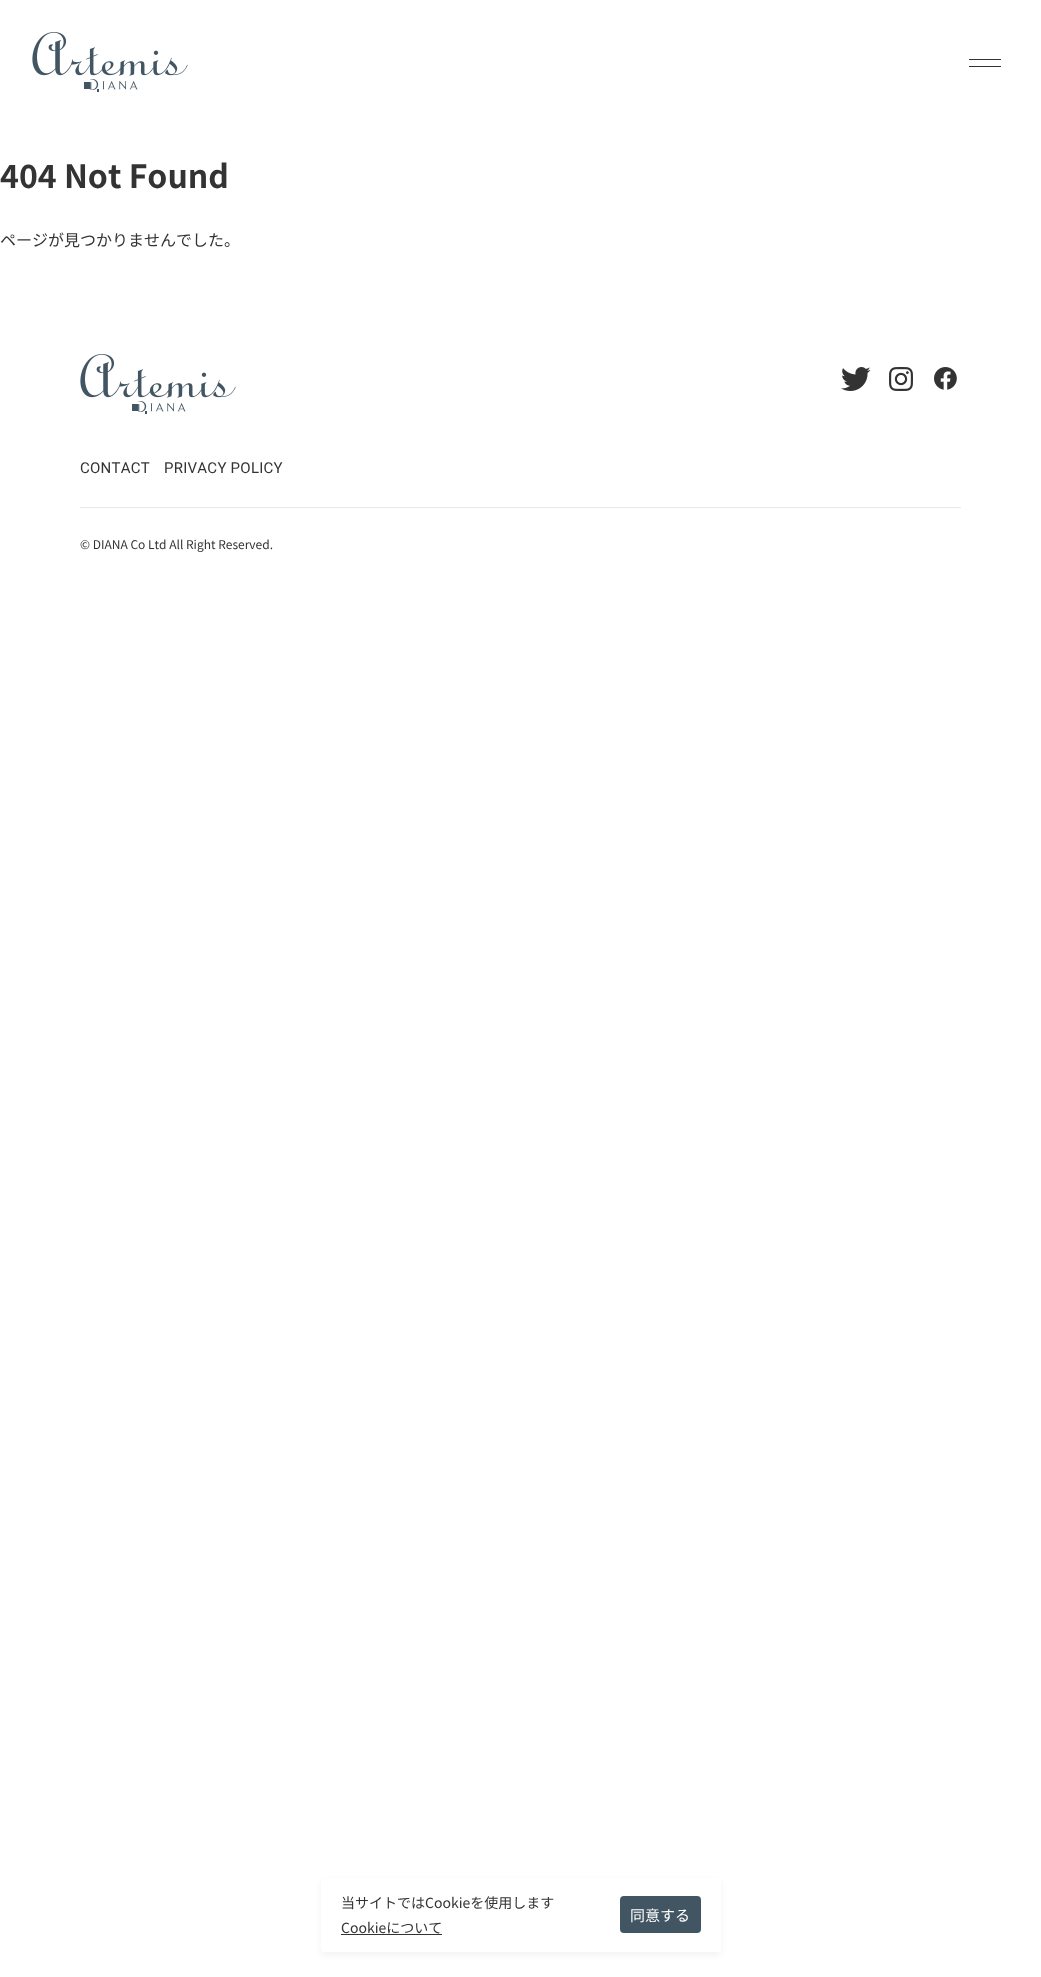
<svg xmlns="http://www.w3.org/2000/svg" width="1041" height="1977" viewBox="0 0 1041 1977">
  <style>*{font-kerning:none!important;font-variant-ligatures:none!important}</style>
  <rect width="100%" height="100%" fill="rgb(255,255,255)"/>
  <image x="32" y="32" width="156" height="60" href="pic1.png"/>
  <rect x="969" y="59" width="32" height="1" fill="rgb(51,51,51)"/>
  <rect x="969" y="66" width="32" height="1" fill="rgb(51,51,51)"/>
  <text x="0" y="188" font-family="Noto Sans JP" font-size="32" font-weight="bold" fill="rgb(51,51,51)">404 Not Found</text>
  <text x="0" y="246" font-family="Noto Sans JP" font-size="16" fill="rgb(51,51,51)">ページが見つかりませんでした。</text>
  <image x="80" y="354" width="156" height="60" href="pic1.png"/>
  <image x="841" y="367" width="30" height="24" href="pic2.png"/>
  <image x="889" y="367" width="24" height="24" href="pic3.png"/>
  <image x="934" y="367" width="23" height="23" href="pic4.png"/>
  <g font-family="Roboto" font-size="15" letter-spacing="0.25" fill="rgb(51,51,51)">
    <text x="80" y="473">CONTACT</text>
    <text x="164" y="473">PRIVACY POLICY</text>
  </g>
  <rect x="80" y="507" width="881" height="1" fill="rgb(232,232,232)"/>
  <text x="80" y="549" font-family="Noto Sans JP" font-size="12" fill="rgb(51,51,51)">© DIANA Co Ltd All Right Reserved.</text>
  <rect x="321" y="1881" width="400" height="74" rx="4" fill="rgba(0,0,0,0.05)" filter="blur(3px)"/>
  <rect x="321" y="1878" width="400" height="74" rx="4" fill="rgb(255,255,255)"/>
  <g font-family="Noto Sans JP" font-size="14" fill="rgb(51,51,51)">
    <text>
      <tspan x="341" y="1908">当サイトではCookieを使用します</tspan>
      <tspan x="341" y="1933">Cookieについて</tspan>
    </text>
  </g>
  <rect x="341" y="1934" width="101" height="1" fill="rgb(51,51,51)"/>
  <rect x="620" y="1896" width="81" height="37" rx="4" fill="rgb(66,85,99)"/>
  <text x="630" y="1921" font-family="Noto Sans JP" font-size="15" fill="rgb(255,255,255)">同意する</text>
</svg>
